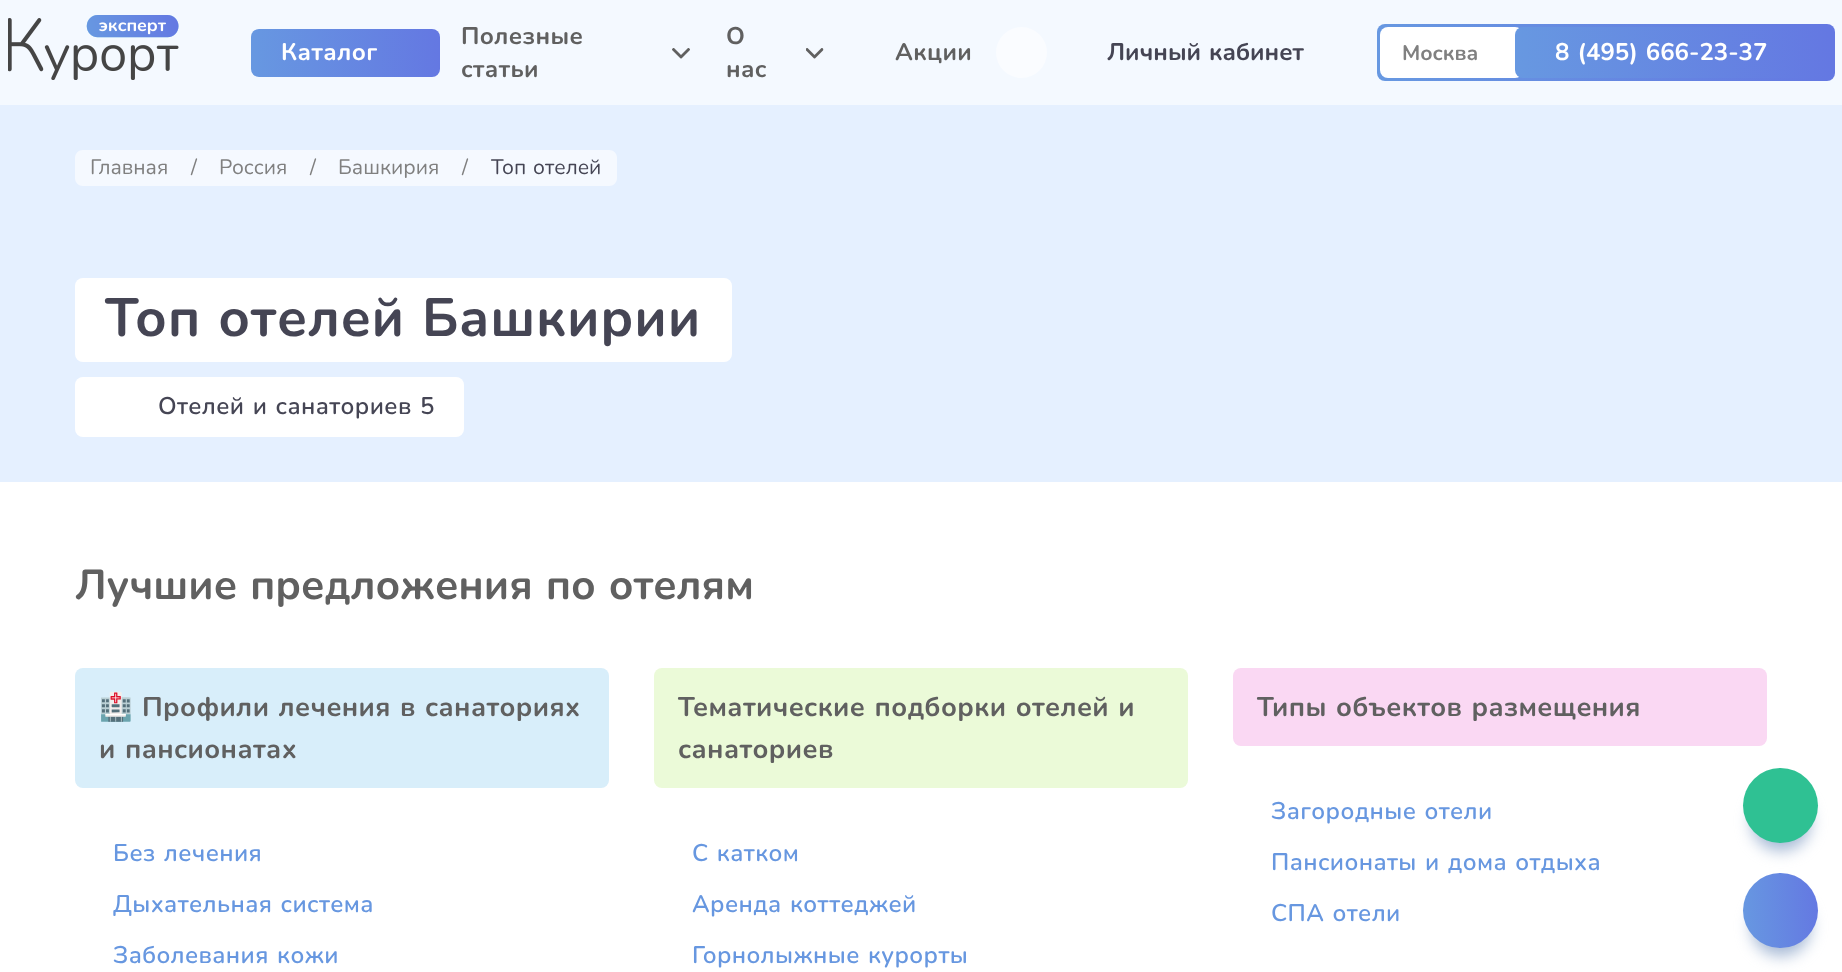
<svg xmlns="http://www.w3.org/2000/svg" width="1842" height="972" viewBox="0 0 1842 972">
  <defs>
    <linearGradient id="g1" gradientUnits="userSpaceOnUse" x1="249" y1="59" x2="441" y2="46"><stop offset="0.01" stop-color="rgb(103,152,225)"/><stop offset="0.99" stop-color="rgb(100,120,226)"/></linearGradient>
    <linearGradient id="g2" gradientUnits="userSpaceOnUse" x1="1376" y1="68" x2="1835" y2="37"><stop offset="0.01" stop-color="rgb(103,152,225)"/><stop offset="0.99" stop-color="rgb(100,120,226)"/></linearGradient>
    <linearGradient id="g3" gradientUnits="userSpaceOnUse" x1="1514" y1="63" x2="1833" y2="42"><stop offset="0.01" stop-color="rgb(103,152,225)"/><stop offset="0.99" stop-color="rgb(100,120,226)"/></linearGradient>
    <linearGradient id="g4" gradientUnits="userSpaceOnUse" x1="1741" y1="913" x2="1820" y2="908"><stop offset="0.01" stop-color="rgb(103,152,225)"/><stop offset="0.99" stop-color="rgb(100,120,226)"/></linearGradient>
  </defs>
  <rect width="100%" height="100%" fill="rgb(255,255,255)"/>
  <rect x="0" y="105" width="1842" height="377" fill="rgb(229,240,255)"/>
  <rect x="0" y="0" width="1842" height="105" fill="rgb(244,249,255)"/>
  <image x="8" y="15" width="171" height="65" href="pic1.png"/>
  <rect x="251" y="29" width="189" height="48" rx="8" fill="url(#g1)"/>
  <text x="281" y="60" font-family="Nunito" font-size="24" font-weight="bold" letter-spacing="0.4" fill="rgb(255,255,255)">Каталог</text>
  <image x="672" y="48" width="18" height="11" href="pic2.png"/>
  <g font-family="Nunito" font-size="24" font-weight="bold" letter-spacing="0.4" fill="rgb(96,96,96)">
    <text>
      <tspan x="461" y="44">Полезные</tspan>
      <tspan x="461" y="77">статьи</tspan>
    </text>
  </g>
  <image x="806" y="48" width="18" height="11" href="pic3.png"/>
  <g font-family="Nunito" font-size="24" font-weight="bold" letter-spacing="0.4" fill="rgb(96,96,96)">
    <text>
      <tspan x="726" y="44">О</tspan>
      <tspan x="726" y="77">нас</tspan>
    </text>
    <text x="895" y="60">Акции</text>
  </g>
  <circle cx="1021.5" cy="52.5" r="25.5" fill="rgb(250,252,255)"/>
  <text x="1107" y="60" word-spacing="1.5" font-family="Nunito" font-size="24" font-weight="bold" fill="rgb(69,69,84)">Личный кабинет</text>
  <rect x="1377" y="24" width="458" height="57" rx="8" fill="url(#g2)"/>
  <rect x="1380" y="27" width="143" height="51" rx="8" fill="rgb(255,255,255)"/>
  <text x="1402" y="60" font-family="Nunito" font-size="21" font-weight="bold" fill="rgb(128,128,128)">Москва</text>
  <rect x="1515" y="27" width="317" height="51" rx="8" fill="url(#g3)"/>
  <text x="1555" y="60" word-spacing="1.5" font-family="Nunito" font-size="24" font-weight="bold" fill="rgb(255,255,255)">8 (495) 666-23-37</text>
  <path d="M83 150H219V186H83C78.5 186 75 182.5 75 178V158C75 153.5 78.5 150 83 150Z" fill="rgb(245,249,255)"/>
  <g font-family="Nunito" font-size="21" fill="rgb(128,128,128)">
    <text x="90" y="174">Главная</text>
    <text x="191" y="174">/</text>
  </g>
  <rect x="219" y="150" width="272" height="36" fill="rgb(245,249,255)"/>
  <g font-family="Nunito" font-size="21" fill="rgb(128,128,128)">
    <text x="219" y="174">Россия</text>
    <text x="310" y="174">/</text>
    <text x="338" y="174">Башкирия</text>
    <text x="462" y="174">/</text>
  </g>
  <path d="M491 150H609C613.5 150 617 153.5 617 158V178C617 182.5 613.5 186 609 186H491Z" fill="rgb(245,249,255)"/>
  <text x="491" y="174" word-spacing="1.5" font-family="Nunito" font-size="21" fill="rgb(69,69,84)">Топ отелей</text>
  <rect x="75" y="278" width="657" height="84" rx="8" fill="rgb(255,255,255)"/>
  <text x="105" y="336" word-spacing="1.5" font-family="Nunito" font-size="54" font-weight="bold" letter-spacing="0.8" fill="rgb(69,69,84)">Топ отелей Башкирии</text>
  <rect x="75" y="377" width="389" height="60" rx="8" fill="rgb(255,255,255)"/>
  <text x="158" y="414" word-spacing="1.5" font-family="Nunito" font-size="24" font-weight="600" letter-spacing="0.4" fill="rgb(69,69,84)">Отелей и санаториев 5</text>
  <text x="75" y="599" word-spacing="1.5" font-family="Nunito" font-size="42" font-weight="bold" fill="rgb(96,96,96)">Лучшие предложения по отелям</text>
  <rect x="75" y="668" width="534" height="120" rx="8" fill="rgb(216,238,250)"/>
  <text x="99" y="716" font-family="Noto Color Emoji" font-size="27" font-weight="bold" letter-spacing="0.4" fill="rgb(96,96,96)">🏥</text>
  <g font-family="Nunito" font-size="27" font-weight="bold" letter-spacing="0.4" fill="rgb(96,96,96)">
    <text x="142" y="716" word-spacing="1.5">Профили лечения в санаториях</text>
    <text x="99" y="758" word-spacing="1.5">и пансионатах</text>
  </g>
  <g font-family="Nunito" font-size="24" font-weight="600" letter-spacing="0.4" fill="rgb(103,151,224)">
    <text x="113" y="861" word-spacing="1.5">Без лечения</text>
    <text x="113" y="912" word-spacing="1.5">Дыхательная система</text>
    <text x="113" y="963" word-spacing="1.5">Заболевания кожи</text>
  </g>
  <rect x="654" y="668" width="534" height="120" rx="8" fill="rgb(235,250,216)"/>
  <g font-family="Nunito" font-size="27" font-weight="bold" letter-spacing="0.4" fill="rgb(96,96,96)">
    <text>
      <tspan x="678" y="716" word-spacing="1.5">Тематические подборки отелей и</tspan>
      <tspan x="678" y="758">санаториев</tspan>
    </text>
  </g>
  <g font-family="Nunito" font-size="24" font-weight="600" letter-spacing="0.4" fill="rgb(103,151,224)">
    <text x="692" y="861" word-spacing="1.5">C катком</text>
    <text x="692" y="912" word-spacing="1.5">Аренда коттеджей</text>
    <text x="692" y="963" word-spacing="1.5">Горнолыжные курорты</text>
  </g>
  <rect x="1233" y="668" width="534" height="78" rx="8" fill="rgb(250,216,243)"/>
  <text x="1257" y="716" word-spacing="1.5" font-family="Nunito" font-size="27" font-weight="bold" letter-spacing="0.4" fill="rgb(96,96,96)">Типы объектов размещения</text>
  <g font-family="Nunito" font-size="24" font-weight="600" letter-spacing="0.4" fill="rgb(103,151,224)">
    <text x="1271" y="819" word-spacing="1.5">Загородные отели</text>
    <text x="1271" y="870" word-spacing="1.5">Пансионаты и дома отдыха</text>
    <text x="1271" y="921" word-spacing="1.5">СПА отели</text>
  </g>
  <rect x="1751" y="791" width="60" height="60" rx="30" fill="rgb(166,185,213)" filter="blur(7.5px)"/>
  <circle cx="1780.5" cy="805.5" r="37.5" fill="rgb(47,193,147)"/>
  <rect x="1751" y="896" width="60" height="60" rx="30" fill="rgb(166,185,213)" filter="blur(7.5px)"/>
  <circle cx="1780.5" cy="910.5" r="37.5" fill="url(#g4)"/>
</svg>
